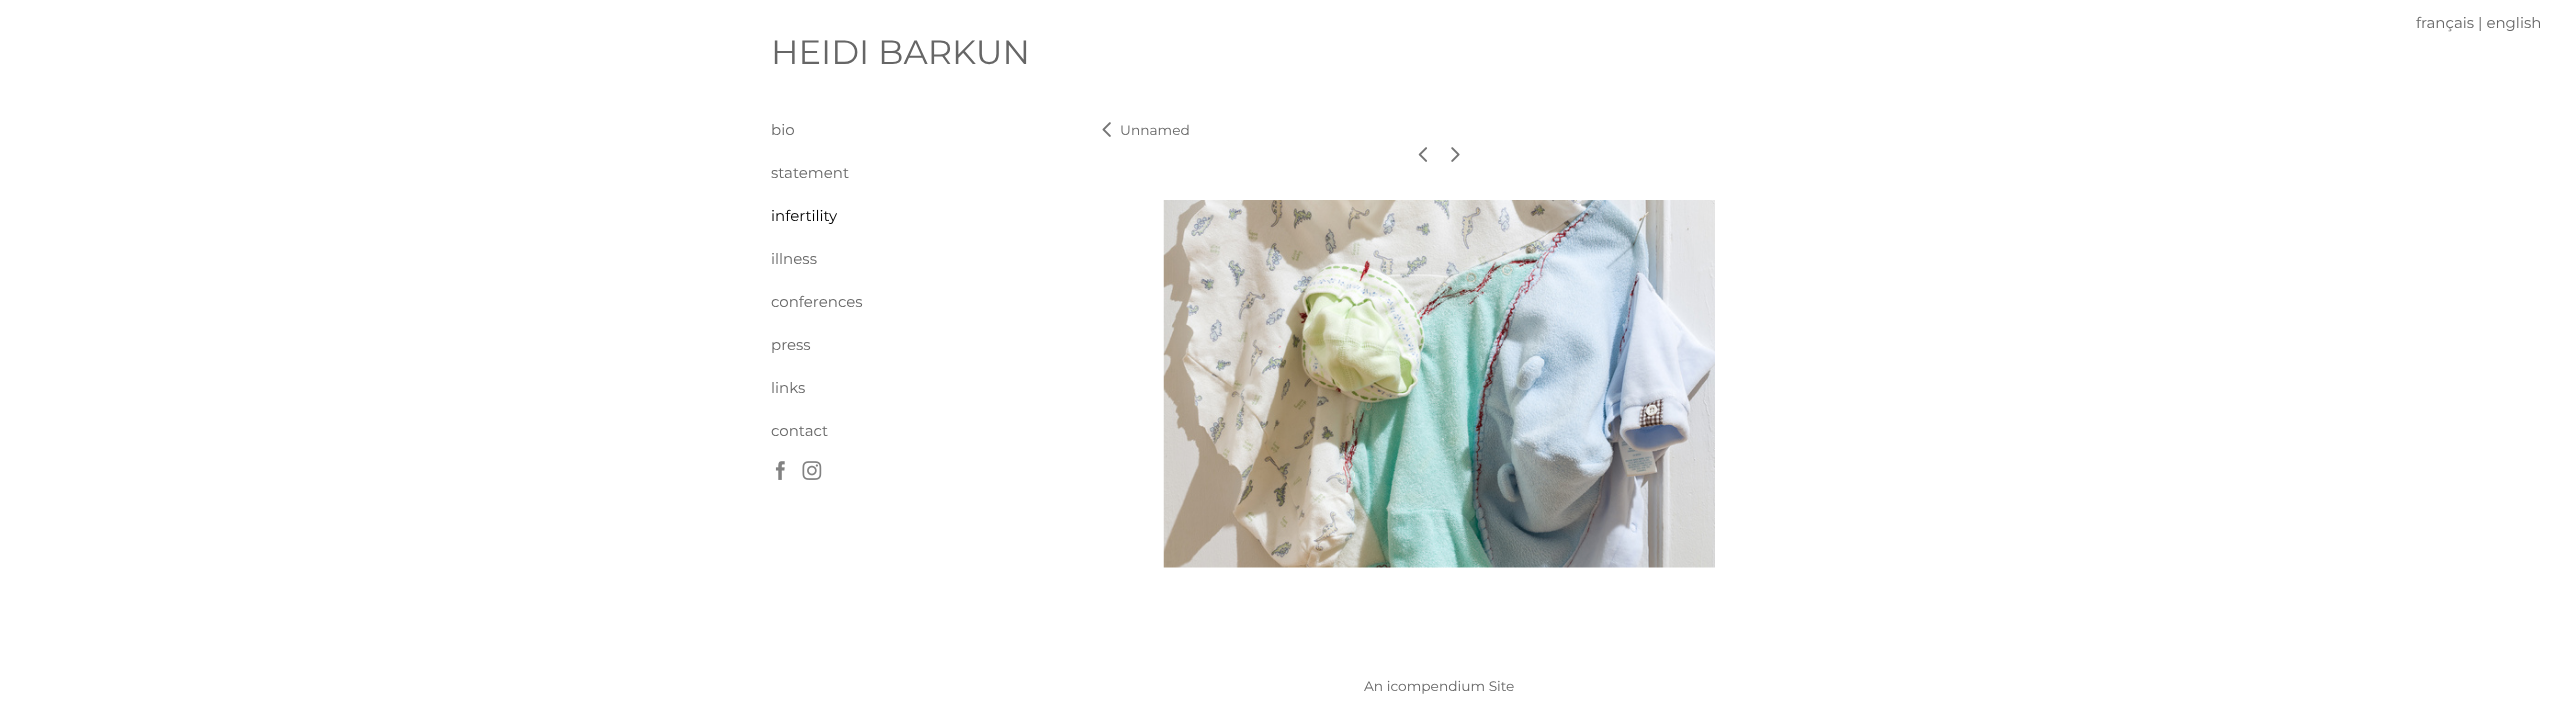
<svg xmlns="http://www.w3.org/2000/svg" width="2566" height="718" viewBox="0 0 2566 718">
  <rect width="100%" height="100%" fill="rgb(255,255,255)"/>
  <text x="2416" y="28" font-family="Montserrat" font-size="15" font-weight="100" fill="rgb(102,102,102)">français | english</text>
  <text x="771" y="64" font-family="Montserrat" font-size="33.75" font-weight="100" fill="rgb(102,102,102)">HEIDI BARKUN</text>
  <g font-family="Montserrat" font-size="15" font-weight="100" fill="rgb(102,102,102)">
    <text x="771" y="135">bio</text>
    <text x="771" y="178">statement</text>
  </g>
  <text x="771" y="221" font-family="Montserrat" font-size="15" font-weight="100" fill="rgb(0,0,0)">infertility</text>
  <g font-family="Montserrat" font-size="15" font-weight="100" fill="rgb(102,102,102)">
    <text x="771" y="264">illness</text>
    <text x="771" y="307">conferences</text>
    <text x="771" y="350">press</text>
    <text x="771" y="393">links</text>
    <text x="771" y="436">contact</text>
  </g>
  <image x="775" y="461" width="10" height="19" href="pic1.png"/>
  <image x="802" y="461" width="20" height="19" href="pic2.png"/>
  <image x="1102" y="122" width="9" height="15" href="pic3.png"/>
  <text x="1120" y="135" font-family="Montserrat" font-size="13.75" font-weight="100" fill="rgb(102,102,102)">Unnamed</text>
  <image x="1418" y="147" width="10" height="15" href="pic4.png"/>
  <image x="1451" y="147" width="9" height="15" href="pic5.png"/>
  <image x="1163" y="200" width="552" height="368" href="pic6.png"/>
  <text x="1364" y="691" font-family="Montserrat" font-size="13.75" font-weight="100" fill="rgb(102,102,102)">An icompendium Site</text>
</svg>
